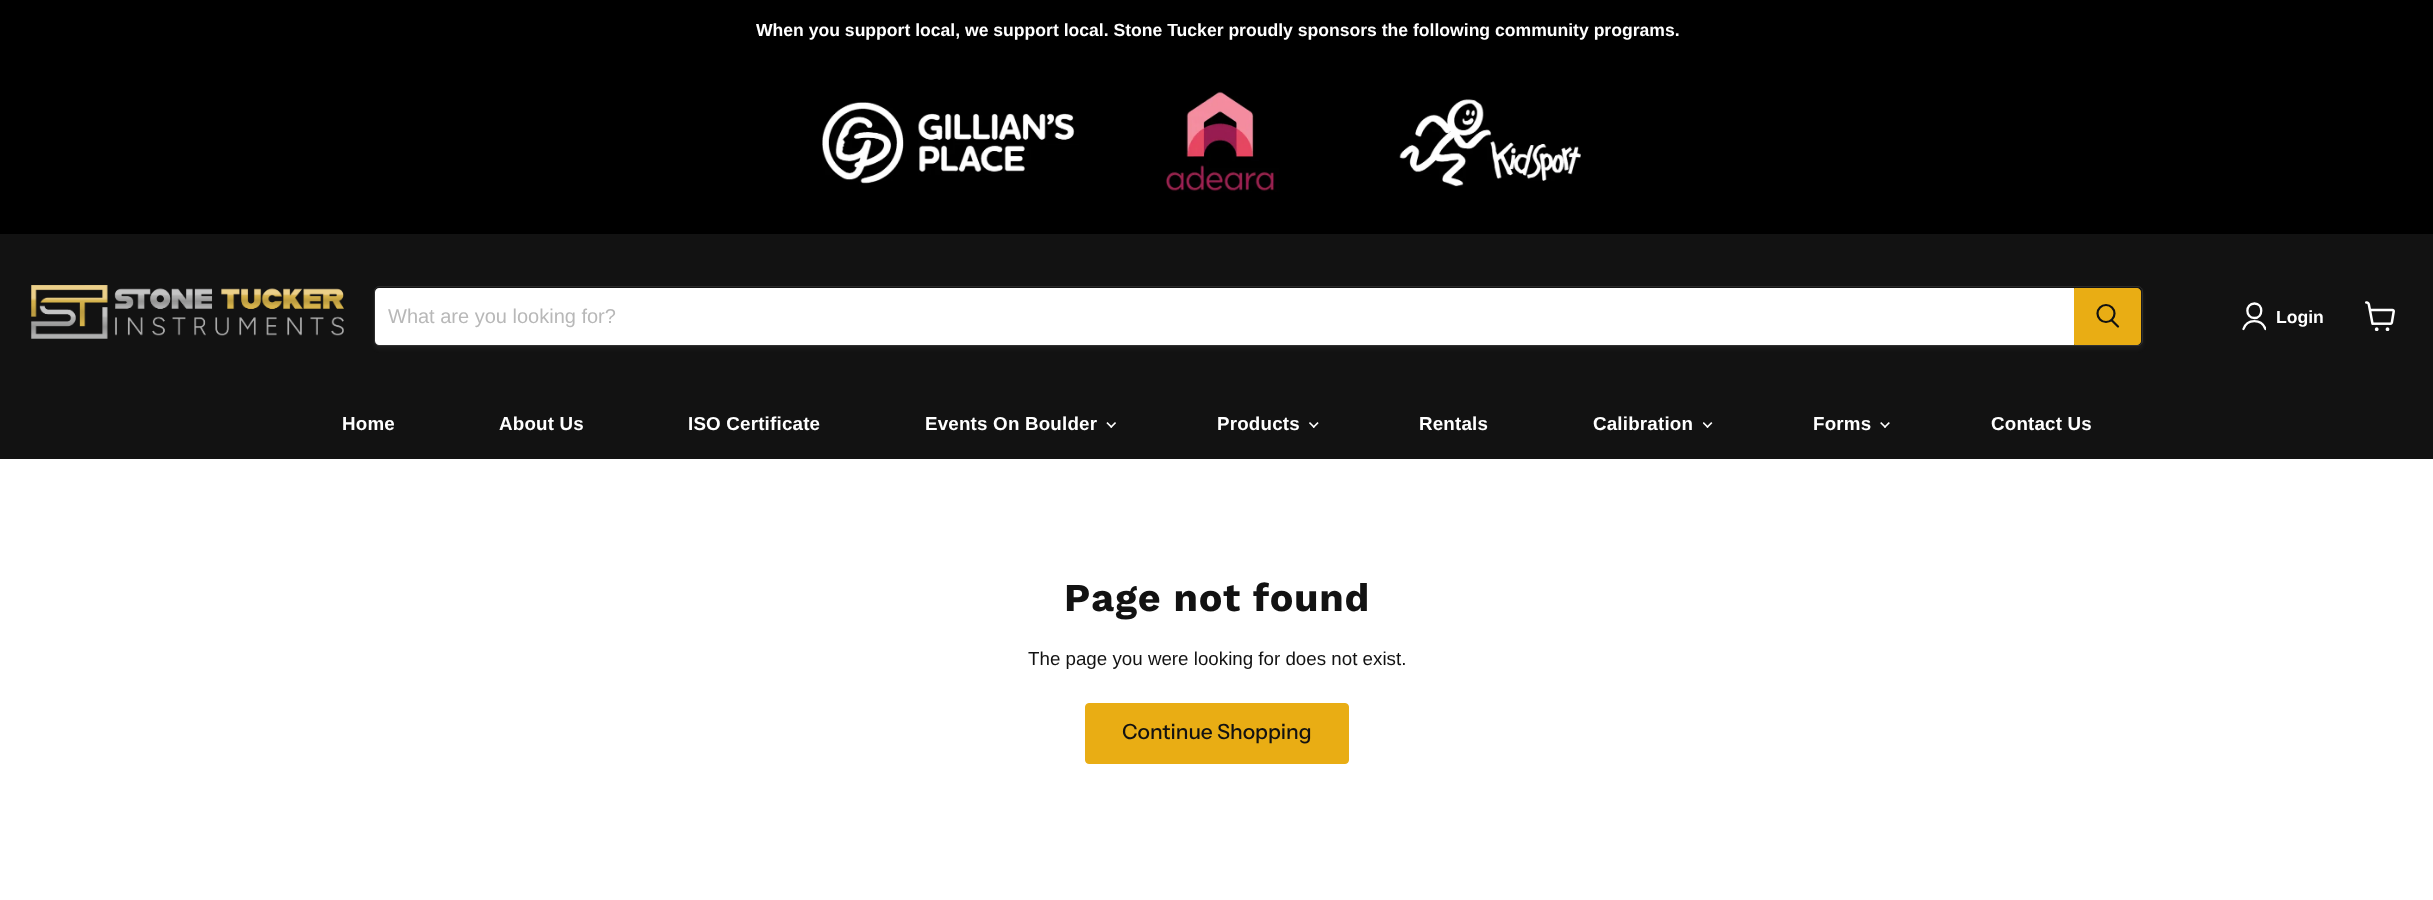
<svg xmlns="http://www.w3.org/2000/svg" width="2433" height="900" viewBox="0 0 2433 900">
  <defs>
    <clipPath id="clip1"><rect x="2241" y="301" width="25" height="30"/></clipPath>
  </defs>
  <rect width="100%" height="100%" fill="rgb(255,255,255)"/>
  <rect x="0" y="0" width="2433" height="234" fill="rgb(0,0,0)"/>
  <image x="822" y="91" width="759" height="101" href="pic1.png"/>
  <text x="756" y="36" font-family="Liberation Sans" font-size="17.58" font-weight="bold" fill="rgb(255,255,255)">When you support local, we support local. Stone Tucker proudly sponsors the following community programs.</text>
  <rect x="0" y="234" width="2433" height="225" fill="rgb(18,18,18)"/>
  <image x="31" y="285" width="313" height="54" href="pic2.png"/>
  <rect x="374" y="289" width="1769" height="60" rx="5" fill="rgba(128,128,128,0.11)" filter="blur(2px)"/>
  <rect x="374.5" y="286.5" width="1768" height="59" rx="4.5" fill="none" stroke="rgba(128,128,128,0.2)"/>
  <path d="M379 288H2074V345H379C377 345 375 343 375 341V292C375 290 377 288 379 288Z" fill="rgb(255,255,255)"/>
  <text x="388" y="323" font-family="Liberation Sans" font-size="20" fill="rgb(184,184,184)">What are you looking for?</text>
  <path d="M2074.5 288.5H2137C2139 288.5 2140.5 290 2140.5 292V341C2140.5 343 2139 344.5 2137 344.5H2074.5Z" fill="rgb(233,173,20)" stroke="rgb(233,173,20)"/>
  <path d="M2118 326.5L2112 320.5" fill="none" stroke="rgb(18,18,18)" stroke-width="2.2" stroke-linecap="round"/>
  <circle cx="2106" cy="313.5" r="8.5" fill="none" stroke="rgb(18,18,18)" stroke-width="2.2"/>
  <path d="M2254.5 318C2263.5 318 2263.5 303.5 2254.5 303.5C2245 303.5 2245 318 2254.5 318Z" fill="none" stroke="rgb(255,255,255)" stroke-width="2.3" stroke-linecap="round" stroke-linejoin="round"/>
  <g clip-path="url(#clip1)">
    <path d="M2265.5 329C2261.5 318.5 2247 318.5 2243.5 329" fill="none" stroke="rgb(255,255,255)" stroke-width="2.3" stroke-linecap="round" stroke-linejoin="round"/>
  </g>
  <text x="2276" y="323" font-family="Liberation Sans" font-size="17.58" font-weight="bold" fill="rgb(255,255,255)">Login</text>
  <image x="2365" y="301" width="30" height="30" href="pic3.png"/>
  <g font-family="Liberation Sans" font-size="18.75" font-weight="bold" letter-spacing="0.2" fill="rgb(255,255,255)">
    <text x="342" y="430">Home</text>
    <text x="499" y="430">About Us</text>
    <text x="688" y="430">ISO Certificate</text>
    <text x="925" y="430">Events On Boulder</text>
  </g>
  <image x="1106" y="422" width="10" height="6" href="pic4.png"/>
  <text x="1217" y="430" font-family="Liberation Sans" font-size="18.75" font-weight="bold" letter-spacing="0.2" fill="rgb(255,255,255)">Products</text>
  <image x="1309" y="422" width="10" height="6" href="pic5.png"/>
  <g font-family="Liberation Sans" font-size="18.75" font-weight="bold" letter-spacing="0.2" fill="rgb(255,255,255)">
    <text x="1419" y="430">Rentals</text>
    <text x="1593" y="430">Calibration</text>
  </g>
  <image x="1703" y="422" width="10" height="6" href="pic6.png"/>
  <text x="1813" y="430" font-family="Liberation Sans" font-size="18.75" font-weight="bold" letter-spacing="0.2" fill="rgb(255,255,255)">Forms</text>
  <image x="1880" y="422" width="10" height="6" href="pic7.png"/>
  <text x="1991" y="430" font-family="Liberation Sans" font-size="18.75" font-weight="bold" letter-spacing="0.2" fill="rgb(255,255,255)">Contact Us</text>
  <text x="1064" y="611" font-family="Work Sans" font-size="39.5" font-weight="bold" letter-spacing="0.75" fill="rgb(18,18,18)">Page not found</text>
  <text x="1028" y="665" font-family="Liberation Sans" font-size="18.75" fill="rgb(18,18,18)">The page you were looking for does not exist.</text>
  <rect x="1085.5" y="703.5" width="263" height="60" rx="3.5" fill="rgb(233,173,20)" stroke="rgb(233,173,20)"/>
  <text x="1122" y="739" font-family="Instrument Sans" font-size="21" font-weight="500" fill="rgb(18,18,18)">Continue Shopping</text>
</svg>
